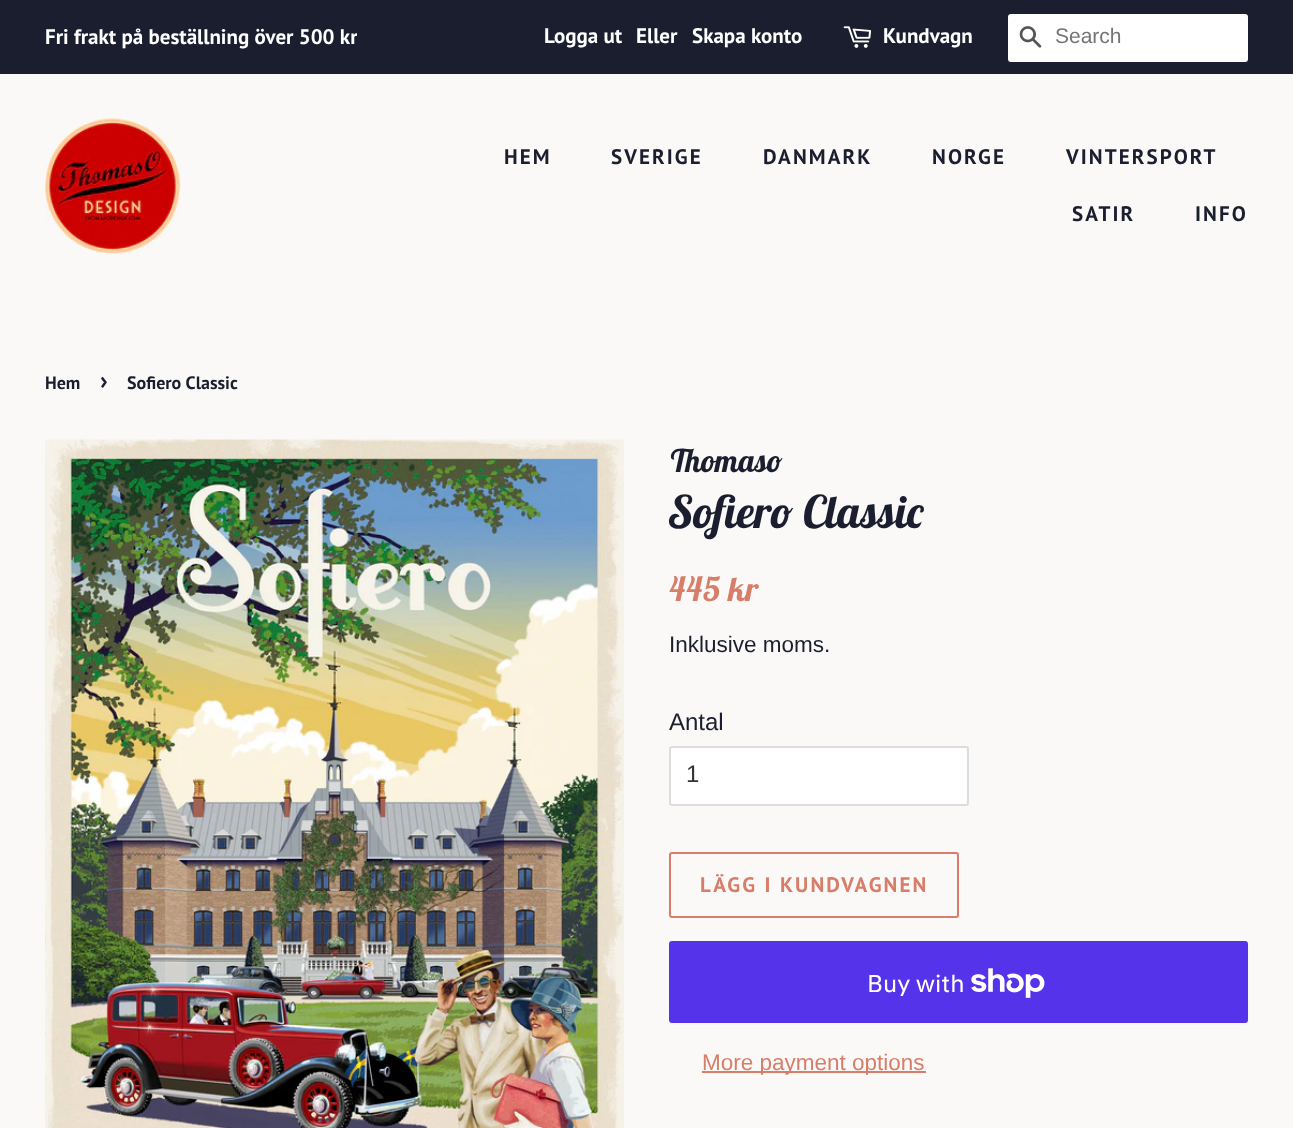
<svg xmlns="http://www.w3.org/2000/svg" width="1293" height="1128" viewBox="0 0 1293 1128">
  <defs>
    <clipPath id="clip1"><rect x="45" y="20" width="312" height="36"/></clipPath>
  </defs>
  <rect width="100%" height="100%" fill="rgb(250,249,247)"/>
  <rect x="0" y="0" width="1293" height="74" fill="rgb(27,30,47)"/>
  <g clip-path="url(#clip1)">
    <text x="45" y="44" font-family="PT Sans" font-size="21" font-weight="bold" fill="rgb(255,255,255)">Fri frakt på beställning över 500 kr</text>
  </g>
  <g font-family="PT Sans" font-size="21" font-weight="bold" fill="rgb(255,255,255)">
    <text x="544" y="43">Logga ut</text>
    <text x="636" y="43">Eller</text>
    <text x="692" y="43">Skapa konto</text>
  </g>
  <image x="843" y="26" width="29" height="22" href="pic1.png"/>
  <text x="883" y="43" font-family="PT Sans" font-size="21" font-weight="bold" fill="rgb(255,255,255)">Kundvagn</text>
  <rect x="1008" y="14" width="240" height="48" rx="3" fill="rgb(255,255,255)"/>
  <image x="1019" y="26" width="23" height="22" href="pic2.png"/>
  <text x="1055" y="43" font-family="Liberation Sans" font-size="21" fill="rgb(117,117,117)">Search</text>
  <image x="45" y="118" width="135" height="136" href="pic3.png"/>
  <g font-family="PT Sans" font-size="21" font-weight="bold" letter-spacing="2.1" fill="rgb(27,30,47)">
    <text x="504" y="164">HEM</text>
    <text x="611" y="164">SVERIGE</text>
    <text x="763" y="164">DANMARK</text>
    <text x="932" y="164">NORGE</text>
    <text x="1066" y="164">VINTERSPORT</text>
    <text x="1072" y="221">SATIR</text>
    <text x="1195" y="221">INFO</text>
  </g>
  <text x="45" y="389" font-family="PT Sans" font-size="18" font-weight="bold" fill="rgb(27,30,47)">Hem</text>
  <text x="100" y="389" font-family="PT Sans" font-size="25" font-weight="bold" fill="rgb(27,30,47)">›</text>
  <text x="127" y="389" font-family="PT Sans" font-size="18" font-weight="bold" fill="rgb(27,30,47)">Sofiero Classic</text>
  <image x="45" y="439" width="579" height="689" href="pic4.png"/>
  <text x="669" y="472" font-family="Lobster Two" font-size="31.5" font-weight="bold" font-style="italic" fill="rgb(27,30,47)">Thomaso</text>
  <text x="669" y="528" font-family="Lobster Two" font-size="45" font-weight="bold" font-style="italic" fill="rgb(27,30,47)">Sofiero Classic</text>
  <text x="669" y="601" font-family="Lobster Two" font-size="33.5" font-weight="bold" font-style="italic" fill="rgb(215,126,106)">445 kr</text>
  <text x="669" y="652" font-family="Liberation Sans" font-size="22.5" fill="rgb(27,30,47)">Inklusive moms.</text>
  <text x="669" y="730" font-family="Liberation Sans" font-size="24" fill="rgb(27,30,47)">Antal</text>
  <rect x="669" y="746" width="300" height="60" rx="3" fill="rgb(255,255,255)"/>
  <rect x="670" y="747" width="298" height="58" rx="2" fill="none" stroke="rgba(27,30,47,0.15)" stroke-width="2"/>
  <text x="686" y="782" font-family="Liberation Sans" font-size="24" fill="rgb(51,51,51)">1</text>
  <rect x="670" y="853" width="288" height="64" rx="2" fill="none" stroke="rgb(215,126,106)" stroke-width="2"/>
  <text x="700" y="892" font-family="PT Sans" font-size="21" font-weight="bold" letter-spacing="2.1" fill="rgb(215,126,106)">LÄGG I KUNDVAGNEN</text>
  <rect x="669" y="941" width="579" height="82" rx="3" fill="rgb(84,51,235)"/>
  <text x="867" y="992" font-family="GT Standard" font-size="24" fill="rgb(255,255,255)">Buy with</text>
  <image x="971" y="968" width="74" height="30" href="pic5.png"/>
  <rect x="702" y="1071" width="224" height="2" fill="rgb(215,126,106)"/>
  <text x="702" y="1070" font-family="Liberation Sans" font-size="22.5" fill="rgb(215,126,106)">More payment options</text>
</svg>
